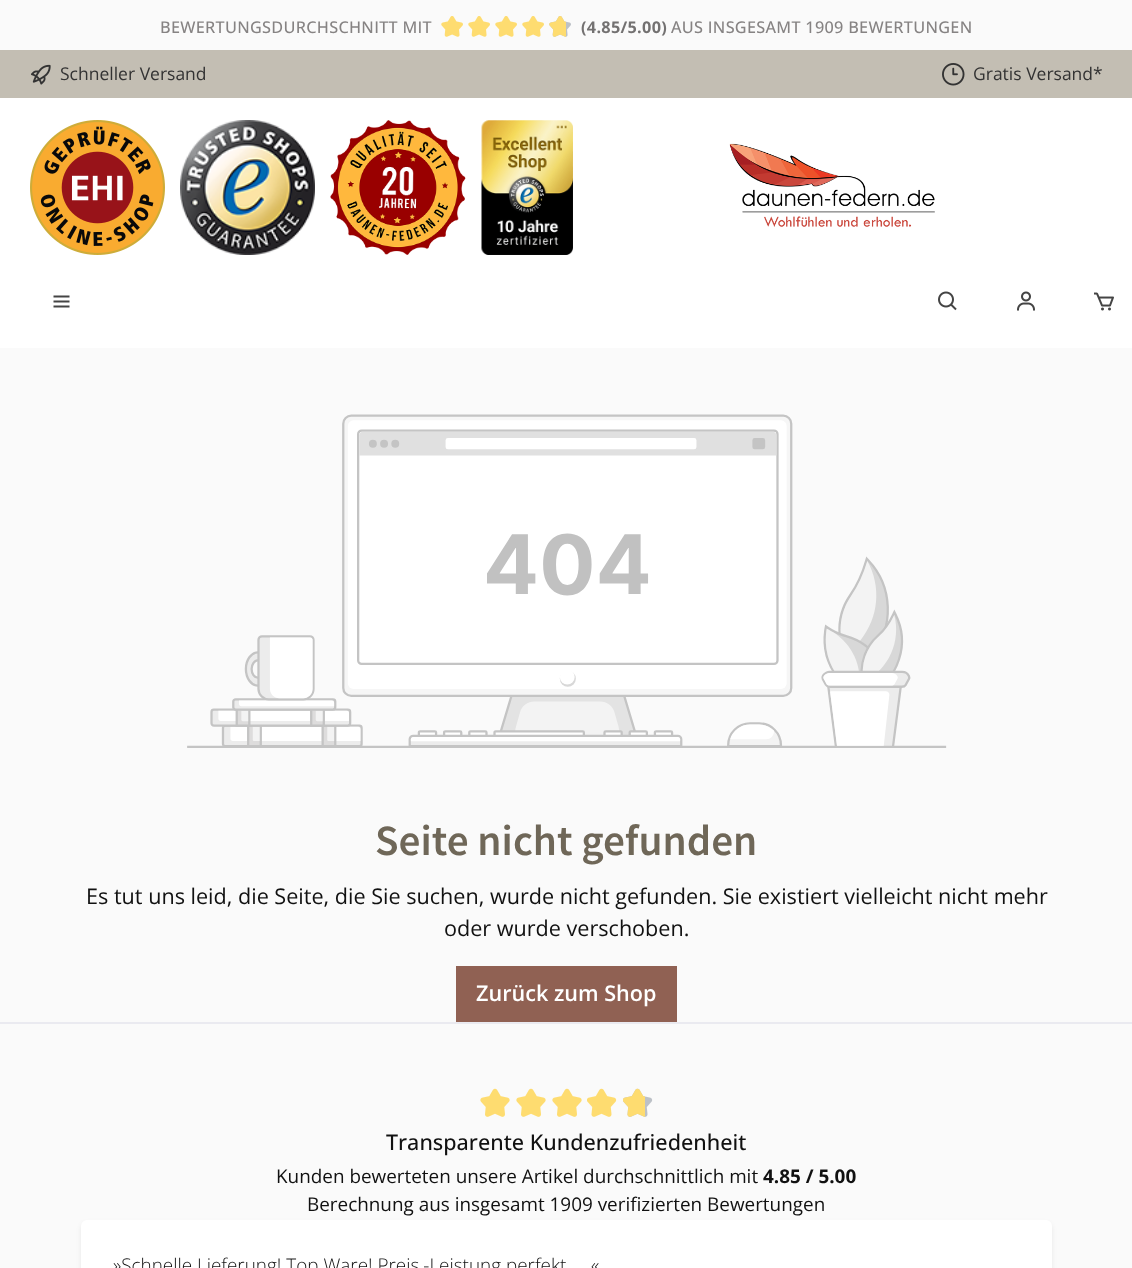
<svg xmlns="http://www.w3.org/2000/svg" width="1132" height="1268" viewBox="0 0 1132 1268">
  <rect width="100%" height="100%" fill="rgb(250,250,250)"/>
  <text x="160" y="33" font-family="Open Sans" font-size="16.25" font-weight="500" letter-spacing="0.3" fill="rgb(134,131,131)">BEWERTUNGSDURCHSCHNITT MIT</text>
  <image x="441" y="16" width="22" height="21" href="pic1.png"/>
  <image x="468" y="16" width="22" height="21" href="pic1.png"/>
  <image x="495" y="16" width="22" height="21" href="pic1.png"/>
  <image x="522" y="16" width="22" height="21" href="pic1.png"/>
  <image x="549" y="16" width="22" height="21" href="pic2.png"/>
  <image x="549" y="16" width="17" height="21" href="pic3.png"/>
  <text x="581" y="33" font-family="Open Sans" font-size="16.25" font-weight="bold" letter-spacing="0.3" fill="rgb(115,113,113)">(4.85/5.00)</text>
  <text x="671" y="33" font-family="Open Sans" font-size="16.25" font-weight="500" letter-spacing="0.3" fill="rgb(134,131,131)">AUS INSGESAMT 1909 BEWERTUNGEN</text>
  <rect x="0" y="50" width="1132" height="48" fill="rgb(195,190,179)"/>
  <image x="31" y="64" width="20" height="21" href="pic4.png"/>
  <text x="60" y="80" font-family="Open Sans" font-size="17.5" fill="rgb(51,51,51)">Schneller Versand</text>
  <image x="942" y="63" width="23" height="23" href="pic5.png"/>
  <text x="973" y="80" font-family="Open Sans" font-size="17.5" fill="rgb(51,51,51)">Gratis Versand*</text>
  <rect x="0" y="98" width="1132" height="250" fill="rgb(255,255,255)"/>
  <image x="30" y="120" width="135" height="135" href="pic6.png"/>
  <image x="180" y="120" width="135" height="135" href="pic7.png"/>
  <image x="330" y="120" width="136" height="135" href="pic8.png"/>
  <image x="481" y="120" width="92" height="135" href="pic9.png"/>
  <image x="729" y="143" width="206" height="84" href="pic10.png"/>
  <image x="53" y="295" width="17" height="13" href="pic11.png"/>
  <image x="938" y="291" width="19" height="20" href="pic12.png"/>
  <image x="1017" y="291" width="18" height="20" href="pic13.png"/>
  <image x="1094" y="292" width="20" height="19" href="pic14.png"/>
  <image x="187" y="414" width="760" height="334" href="pic15.png"/>
  <text x="375" y="855" font-family="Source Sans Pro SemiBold" font-size="43.25" font-weight="600" fill="rgb(111,103,88)">Seite nicht gefunden</text>
  <g font-family="Open Sans" font-size="21.6" fill="rgb(17,17,17)">
    <text x="86" y="904">Es tut uns leid, die Seite, die Sie suchen, wurde nicht gefunden. Sie existiert vielleicht nicht mehr</text>
    <text x="444" y="936">oder wurde verschoben.</text>
  </g>
  <rect x="456" y="966" width="221" height="56" fill="rgb(144,97,83)"/>
  <text x="476" y="1001" font-family="Open Sans" font-size="21.6" font-weight="600" fill="rgb(255,255,255)">Zurück zum Shop</text>
  <rect x="0" y="1022" width="1132" height="2" fill="rgb(234,234,240)"/>
  <image x="480" y="1088" width="30" height="29" href="pic16.png"/>
  <image x="516" y="1088" width="30" height="29" href="pic16.png"/>
  <image x="552" y="1088" width="30" height="29" href="pic16.png"/>
  <image x="587" y="1088" width="30" height="29" href="pic17.png"/>
  <image x="623" y="1088" width="30" height="29" href="pic18.png"/>
  <image x="623" y="1088" width="22" height="29" href="pic19.png"/>
  <text x="386" y="1150" font-family="Open Sans" font-size="21.6" font-weight="500" fill="rgb(17,17,17)">Transparente Kundenzufriedenheit</text>
  <text x="276" y="1183" font-family="Open Sans" font-size="18.9" fill="rgb(17,17,17)">Kunden bewerteten unsere Artikel durchschnittlich mit</text>
  <text x="763" y="1183" font-family="Open Sans" font-size="18.9" font-weight="bold" fill="rgb(17,17,17)">4.85 / 5.00</text>
  <text x="307" y="1211" font-family="Open Sans" font-size="18.9" fill="rgb(17,17,17)">Berechnung aus insgesamt 1909 verifizierten Bewertungen</text>
  <rect x="81" y="1223" width="971" height="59" rx="6" fill="rgba(0,0,0,0.07)" filter="blur(2.5px)"/>
  <rect x="81" y="1220" width="971" height="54" rx="6" fill="rgb(255,255,255)"/>
  <g font-family="Open Sans" font-size="18.9" font-weight="300" fill="rgb(17,17,17)">
    <text x="113" y="1272">»Schnelle Lieferung! Top Ware! Preis,-Leistung perfekt</text>
    <text x="591" y="1272">«</text>
  </g>
</svg>
